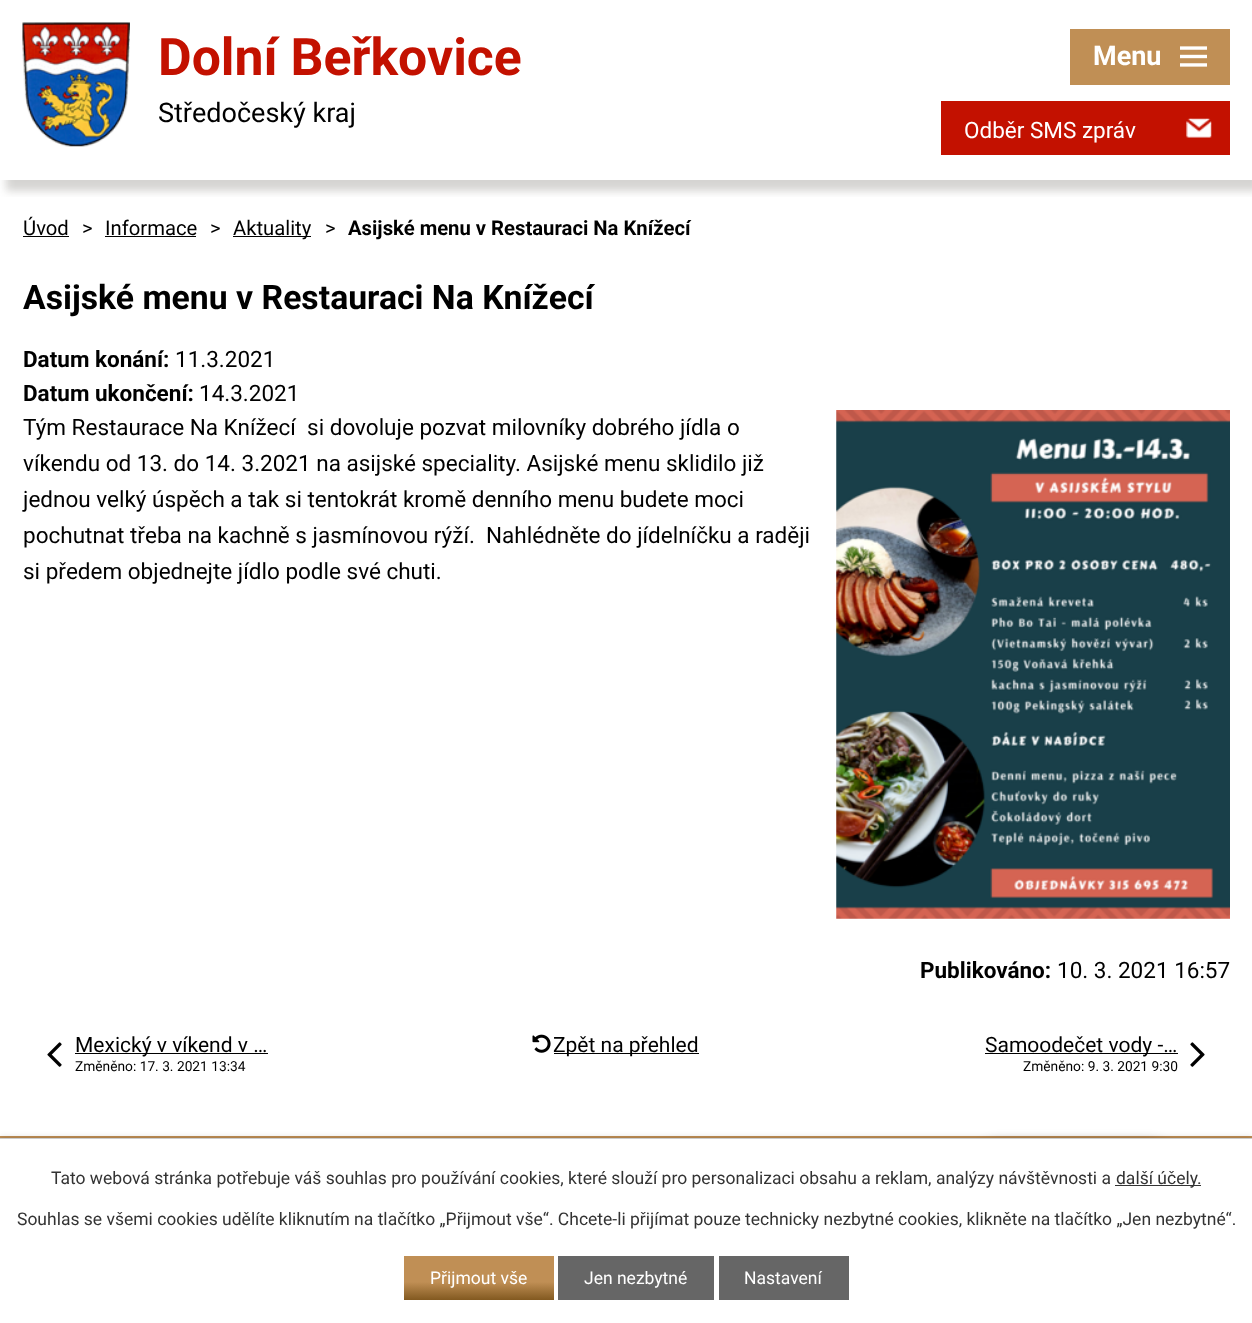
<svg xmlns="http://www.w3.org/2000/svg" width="1252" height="1323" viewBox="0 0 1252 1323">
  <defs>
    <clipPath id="clip1"><rect x="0" y="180" width="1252" height="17"/></clipPath>
    <linearGradient id="g1" gradientUnits="userSpaceOnUse" x1="626" y1="1136" x2="626" y2="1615"><stop offset="0.59" stop-color="rgb(192,143,85)"/><stop offset="1" stop-color="rgb(130,89,32)"/></linearGradient>
    <linearGradient id="g2" gradientUnits="userSpaceOnUse" x1="479" y1="1256" x2="479" y2="1300"><stop offset="0.59" stop-color="rgb(192,143,85)"/><stop offset="1" stop-color="rgb(130,89,32)"/></linearGradient>
  </defs>
  <rect width="100%" height="100%" fill="rgb(255,255,255)"/>
  <g clip-path="url(#clip1)">
    <rect x="6" y="11" width="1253" height="180" fill="rgba(47,40,30,0.2)" filter="blur(4.5px)"/>
  </g>
  <image x="22" y="22" width="108" height="125" href="pic1.png"/>
  <text x="158" y="75" font-family="Roboto" font-size="51.75" font-weight="bold" fill="rgb(195,17,0)">Dolní Beřkovice</text>
  <text x="158" y="122" font-family="Roboto" font-size="27" fill="rgb(0,0,0)">Středočeský kraj</text>
  <rect x="941" y="101" width="289" height="54" fill="rgb(195,17,0)"/>
  <image x="1186" y="118" width="26" height="20" href="pic2.png"/>
  <text x="964" y="138" font-family="Roboto" font-size="22.5" fill="rgb(255,255,255)">Odběr SMS zpráv</text>
  <rect x="1070" y="29" width="160" height="56" fill="rgb(192,143,85)"/>
  <text x="1093" y="65" font-family="Roboto" font-size="27" font-weight="bold" fill="rgb(255,255,255)">Menu</text>
  <image x="1180" y="46" width="27" height="21" href="pic3.png"/>
  <text x="23" y="235" font-family="Roboto" font-size="20.25" fill="rgb(0,0,0)">Úvod</text>
  <rect x="23" y="236" width="46" height="1" fill="rgb(0,0,0)"/>
  <g font-family="Roboto" font-size="20.25" fill="rgb(0,0,0)">
    <text x="82" y="235">&gt;</text>
    <text x="105" y="235">Informace</text>
  </g>
  <rect x="105" y="236" width="91" height="1" fill="rgb(0,0,0)"/>
  <text x="210" y="235" font-family="Roboto" font-size="20.25" fill="rgb(0,0,0)">&gt;</text>
  <rect x="233" y="236" width="78" height="1" fill="rgb(0,0,0)"/>
  <g font-family="Roboto" font-size="20.25" fill="rgb(0,0,0)">
    <text x="233" y="235">Aktuality</text>
    <text x="325" y="235">&gt;</text>
  </g>
  <text x="348" y="235" font-family="Roboto" font-size="20.25" font-weight="bold" fill="rgb(0,0,0)">Asijské menu v Restauraci Na Knížecí</text>
  <text x="23" y="309" font-family="Roboto" font-size="33.75" font-weight="bold" fill="rgb(0,0,0)">Asijské menu v Restauraci Na Knížecí</text>
  <text x="23" y="367" font-family="Roboto" font-size="22.5" font-weight="bold" fill="rgb(0,0,0)">Datum konání:</text>
  <text x="175" y="367" font-family="Roboto" font-size="22.5" fill="rgb(0,0,0)">11.3.2021</text>
  <text x="23" y="401" font-family="Roboto" font-size="22.5" font-weight="bold" fill="rgb(0,0,0)">Datum ukončení:</text>
  <g font-family="Roboto" font-size="22.5" fill="rgb(0,0,0)">
    <text x="199" y="401">14.3.2021</text>
    <text x="23" y="435" xml:space="preserve">Tým Restaurace Na Knížecí  si dovoluje pozvat milovníky dobrého jídla o</text>
  </g>
  <image x="836" y="410" width="394" height="509" href="pic4.png"/>
  <g font-family="Roboto" font-size="22.5" fill="rgb(0,0,0)">
    <text xml:space="preserve"><tspan x="23" y="471">víkendu od 13. do 14. 3.2021 na asijské speciality. Asijské menu sklidilo již</tspan><tspan x="23" y="507">jednou velký úspěch a tak si tentokrát kromě denního menu budete moci</tspan><tspan x="23" y="543">pochutnat třeba na kachně s jasmínovou rýží.  Nahlédněte do jídelníčku a raději</tspan><tspan x="23" y="579">si předem objednejte jídlo podle své chuti.</tspan></text>
  </g>
  <text x="920" y="978" font-family="Roboto" font-size="22.5" font-weight="bold" fill="rgb(0,0,0)">Publikováno:</text>
  <text x="1057" y="978" font-family="Roboto" font-size="22.5" fill="rgb(0,0,0)">10. 3. 2021 16:57</text>
  <image x="47" y="1042" width="15" height="25" href="pic5.png"/>
  <rect x="75" y="1053" width="193" height="1" fill="rgb(0,0,0)"/>
  <text x="75" y="1052" font-family="Roboto" font-size="21" fill="rgb(0,0,0)">Mexický v víkend v …</text>
  <text x="75" y="1071" font-family="Roboto" font-size="13.75" fill="rgb(0,0,0)">Změněno: 17. 3. 2021 13:34</text>
  <image x="532" y="1034" width="19" height="19" href="pic6.png"/>
  <rect x="554" y="1053" width="145" height="1" fill="rgb(0,0,0)"/>
  <text x="553" y="1052" font-family="Roboto" font-size="21" fill="rgb(0,0,0)">Zpět na přehled</text>
  <rect x="985" y="1053" width="193" height="1" fill="rgb(0,0,0)"/>
  <text x="985" y="1052" font-family="Roboto" font-size="21" fill="rgb(0,0,0)">Samoodečet vody -…</text>
  <text x="1023" y="1071" font-family="Roboto" font-size="13.75" fill="rgb(0,0,0)">Změněno: 9. 3. 2021 9:30</text>
  <image x="1190" y="1042" width="15" height="25" href="pic7.png"/>
  <rect x="0" y="1136" width="1252" height="2" fill="url(#g1)"/>
  <rect x="971" y="1141" width="207" height="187" rx="31" fill="rgba(0,0,0,0.2)" filter="blur(6px)"/>
  <rect x="0" y="1138" width="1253" height="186" fill="rgba(0,0,0,0.2)" filter="blur(3px)"/>
  <rect x="0" y="1139" width="1252" height="184" fill="rgb(255,255,255)"/>
  <rect x="0" y="1138" width="1252" height="1" fill="rgb(204,204,204)"/>
  <text x="51" y="1184" font-family="Roboto" font-size="17.5" fill="rgb(51,51,51)">Tato webová stránka potřebuje váš souhlas pro používání cookies, které slouží pro personalizaci obsahu a reklam, analýzy návštěvnosti a</text>
  <rect x="1115" y="1185" width="86" height="1" fill="rgb(51,51,51)"/>
  <g font-family="Roboto" font-size="17.5" fill="rgb(51,51,51)">
    <text x="1116" y="1184">další účely.</text>
    <text x="17" y="1225">Souhlas se všemi cookies udělíte kliknutím na tlačítko „Přijmout vše“. Chcete-li přijímat pouze technicky nezbytné cookies, klikněte na tlačítko „Jen nezbytné“.</text>
  </g>
  <rect x="404" y="1256" width="150" height="44" fill="url(#g2)"/>
  <text x="430" y="1284" font-family="Roboto" font-size="17.5" fill="rgb(255,255,255)">Přijmout vše</text>
  <rect x="558" y="1256" width="156" height="44" fill="rgb(102,102,102)"/>
  <text x="584" y="1284" font-family="Roboto" font-size="17.5" fill="rgb(255,255,255)">Jen nezbytné</text>
  <rect x="719" y="1256" width="130" height="44" fill="rgb(102,102,102)"/>
  <text x="744" y="1284" font-family="Roboto" font-size="17.5" fill="rgb(255,255,255)">Nastavení</text>
</svg>
